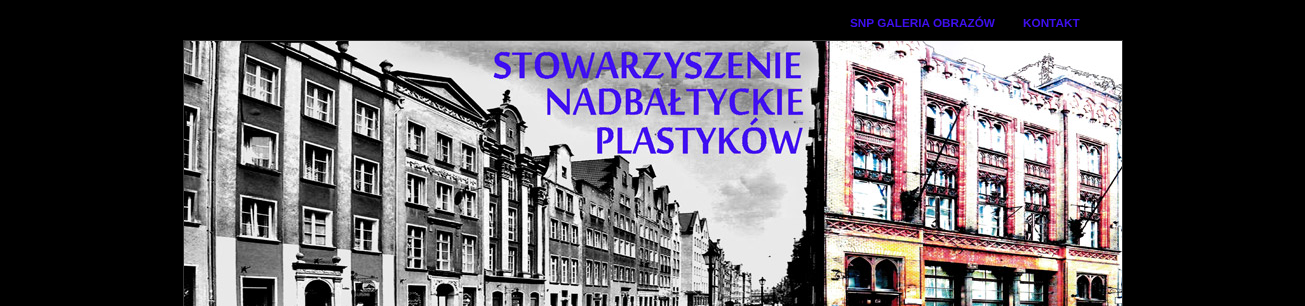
<svg xmlns="http://www.w3.org/2000/svg" width="1305" height="306" viewBox="0 0 1305 306">
  <rect width="100%" height="100%" fill="rgb(0,0,0)"/>
  <g font-family="Liberation Sans" font-size="11.75" font-weight="bold" fill="rgb(63,15,241)">
    <text x="850" y="27">SNP GALERIA OBRAZÓW</text>
    <text x="1023" y="27">KONTAKT</text>
  </g>
  <image x="184" y="41" width="938" height="265" href="pic1.png"/>
  <rect x="183.5" y="40.5" width="939" height="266" fill="none" stroke="rgb(51,51,51)"/>
</svg>
